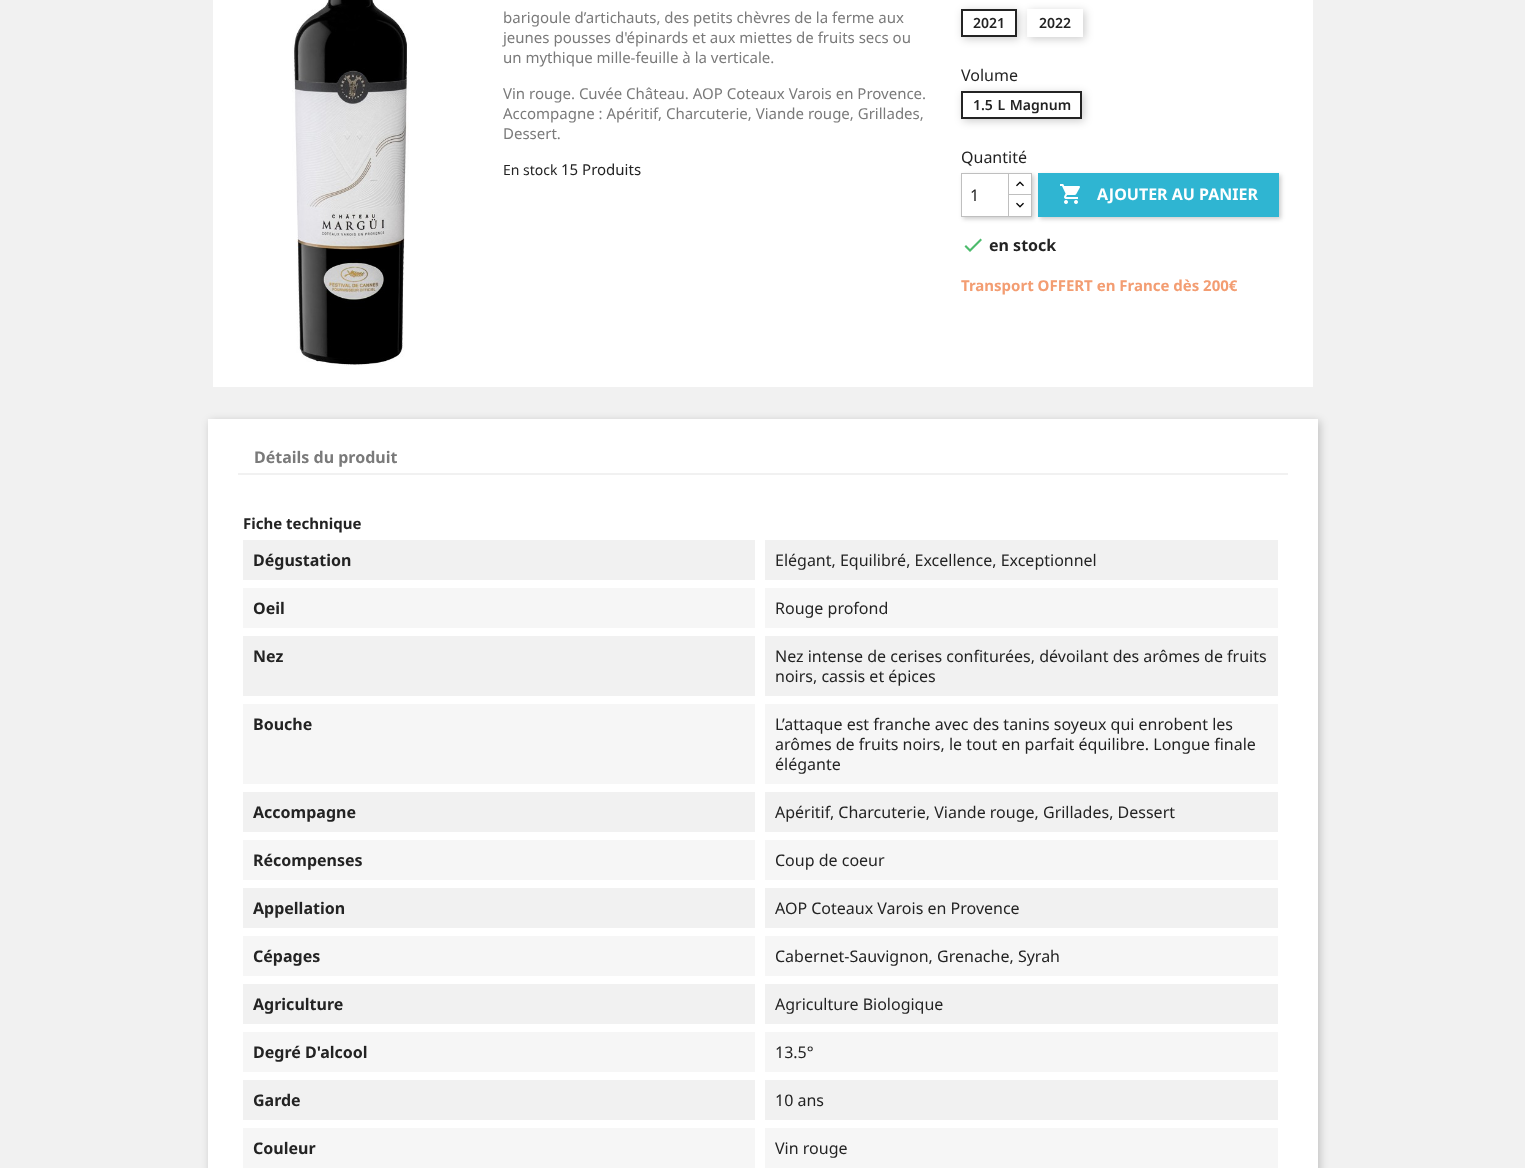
<svg xmlns="http://www.w3.org/2000/svg" width="1525" height="1168" viewBox="0 0 1525 1168">
  <defs>
    <clipPath id="clip1"><path d="M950 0H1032V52H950ZM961 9H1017V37H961Z" clip-rule="evenodd"/></clipPath>
    <clipPath id="clip2"><path d="M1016 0H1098V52H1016ZM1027 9H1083V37H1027Z" clip-rule="evenodd"/></clipPath>
    <clipPath id="clip3"><path d="M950 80H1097V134H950ZM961 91H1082V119H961Z" clip-rule="evenodd"/></clipPath>
    <clipPath id="clip4"><path d="M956 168H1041V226H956ZM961 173H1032V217H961Z" clip-rule="evenodd"/></clipPath>
  </defs>
  <rect width="100%" height="100%" fill="rgb(241,241,241)"/>
  <rect x="213" y="0" width="1100" height="387" fill="rgb(255,255,255)"/>
  <image x="292" y="0" width="117" height="366" href="pic1.png"/>
  <g font-family="Noto Sans" font-size="15" fill="rgb(122,122,122)">
    <text>
      <tspan x="503" y="23">barigoule d’artichauts, des petits chèvres de la ferme aux</tspan>
      <tspan x="503" y="43">jeunes pousses d'épinards et aux miettes de fruits secs ou</tspan>
      <tspan x="503" y="63">un mythique mille-feuille à la verticale.</tspan>
    </text>
    <text>
      <tspan x="503" y="99">Vin rouge. Cuvée Château. AOP Coteaux Varois en Provence.</tspan>
      <tspan x="503" y="119">Accompagne : Apéritif, Charcuterie, Viande rouge, Grillades,</tspan>
      <tspan x="503" y="139">Dessert.</tspan>
    </text>
  </g>
  <text x="503" y="175" font-family="Noto Sans" font-size="14" fill="rgb(35,35,35)">En stock</text>
  <text x="561" y="175" font-family="Noto Sans" font-size="15" fill="rgb(35,35,35)">15 Produits</text>
  <g clip-path="url(#clip1)">
    <rect x="963" y="11" width="56" height="28" fill="rgba(0,0,0,0.2)" filter="blur(4px)"/>
  </g>
  <rect x="962" y="10" width="54" height="26" fill="none" stroke="rgb(35,35,35)" stroke-width="2"/>
  <text x="973" y="28" font-family="Noto Sans" font-size="14" font-weight="600" fill="rgb(35,35,35)">2021</text>
  <g clip-path="url(#clip2)">
    <rect x="1029" y="11" width="56" height="28" fill="rgba(0,0,0,0.2)" filter="blur(4px)"/>
  </g>
  <text x="1039" y="28" font-family="Noto Sans" font-size="14" font-weight="600" fill="rgb(35,35,35)">2022</text>
  <text x="961" y="81" font-family="Noto Sans" font-size="16" fill="rgb(35,35,35)">Volume</text>
  <g clip-path="url(#clip3)">
    <rect x="963" y="93" width="121" height="28" fill="rgba(0,0,0,0.2)" filter="blur(4px)"/>
  </g>
  <rect x="962" y="92" width="119" height="26" fill="none" stroke="rgb(35,35,35)" stroke-width="2"/>
  <text x="973" y="110" word-spacing="1" font-family="Noto Sans" font-size="14" font-weight="600" fill="rgb(35,35,35)">1.5 L Magnum</text>
  <text x="961" y="163" font-family="Noto Sans" font-size="16" fill="rgb(35,35,35)">Quantité</text>
  <rect x="1040" y="175" width="241" height="44" fill="rgba(0,0,0,0.2)" filter="blur(2px)"/>
  <rect x="1038" y="173" width="241" height="44" fill="rgb(47,181,210)"/>
  <g clip-path="url(#clip4)">
    <rect x="963" y="175" width="71" height="44" fill="rgba(0,0,0,0.2)" filter="blur(2px)"/>
  </g>
  <rect x="1008.5" y="173.5" width="23" height="22" fill="none" stroke="rgb(191,191,191)"/>
  <rect x="1009" y="195" width="22" height="1" fill="rgb(255,255,255)"/>
  <rect x="1008.5" y="194.5" width="23" height="22" fill="none" stroke="rgb(191,191,191)"/>
  <rect x="961.5" y="173.5" width="47" height="43" fill="none" stroke="rgb(191,191,191)"/>
  <text x="970" y="201" font-family="Noto Sans" font-size="16" fill="rgb(35,35,35)">1</text>
  <image x="1016" y="181" width="8" height="6" href="pic2.png"/>
  <image x="1016" y="202" width="8" height="6" href="pic3.png"/>
  <image x="1060" y="184" width="20" height="20" href="pic4.png"/>
  <text x="1097" y="200" font-family="Noto Sans" font-size="16" font-weight="bold" fill="rgb(255,255,255)">AJOUTER AU PANIER</text>
  <path d="M970 249L980.5 238.5L982 240L970 252L964.5 246.5L966 245Z" fill="rgb(76,187,108)"/>
  <text x="989" y="251" font-family="Noto Sans" font-size="16" font-weight="bold" fill="rgb(35,35,35)">en stock</text>
  <text x="961" y="291" font-family="Noto Sans" font-size="15" font-weight="bold" fill="rgb(243,157,114)">Transport OFFERT en France dès 200€</text>
  <rect x="210" y="421" width="1110" height="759" fill="rgba(0,0,0,0.2)" filter="blur(4px)"/>
  <rect x="208" y="419" width="1110" height="749" fill="rgb(255,255,255)"/>
  <rect x="238" y="473" width="1050" height="2" fill="rgb(241,241,241)"/>
  <text x="254" y="463" font-family="Noto Sans" font-size="16" font-weight="bold" fill="rgb(122,122,122)">Détails du produit</text>
  <text x="243" y="529" font-family="Noto Sans" font-size="15" font-weight="bold" fill="rgb(35,35,35)">Fiche technique</text>
  <rect x="243" y="540" width="512" height="40" fill="rgb(241,241,241)"/>
  <text x="253" y="566" font-family="Noto Sans" font-size="16" font-weight="bold" fill="rgb(35,35,35)">Dégustation</text>
  <rect x="765" y="540" width="513" height="40" fill="rgb(241,241,241)"/>
  <text x="775" y="566" font-family="Noto Sans" font-size="16" fill="rgb(35,35,35)">Elégant, Equilibré, Excellence, Exceptionnel</text>
  <rect x="243" y="588" width="512" height="40" fill="rgb(246,246,246)"/>
  <text x="253" y="614" font-family="Noto Sans" font-size="16" font-weight="bold" fill="rgb(35,35,35)">Oeil</text>
  <rect x="765" y="588" width="513" height="40" fill="rgb(246,246,246)"/>
  <text x="775" y="614" font-family="Noto Sans" font-size="16" fill="rgb(35,35,35)">Rouge profond</text>
  <rect x="243" y="636" width="512" height="60" fill="rgb(241,241,241)"/>
  <text x="253" y="662" font-family="Noto Sans" font-size="16" font-weight="bold" fill="rgb(35,35,35)">Nez</text>
  <rect x="765" y="636" width="513" height="60" fill="rgb(241,241,241)"/>
  <g font-family="Noto Sans" font-size="16" fill="rgb(35,35,35)">
    <text>
      <tspan x="775" y="662">Nez intense de cerises confiturées, dévoilant des arômes de fruits</tspan>
      <tspan x="775" y="682">noirs, cassis et épices</tspan>
    </text>
  </g>
  <rect x="243" y="704" width="512" height="80" fill="rgb(246,246,246)"/>
  <text x="253" y="730" font-family="Noto Sans" font-size="16" font-weight="bold" fill="rgb(35,35,35)">Bouche</text>
  <rect x="765" y="704" width="513" height="80" fill="rgb(246,246,246)"/>
  <g font-family="Noto Sans" font-size="16" fill="rgb(35,35,35)">
    <text>
      <tspan x="775" y="730">L’attaque est franche avec des tanins soyeux qui enrobent les</tspan>
      <tspan x="775" y="750">arômes de fruits noirs, le tout en parfait équilibre. Longue finale</tspan>
      <tspan x="775" y="770">élégante</tspan>
    </text>
  </g>
  <rect x="243" y="792" width="512" height="40" fill="rgb(241,241,241)"/>
  <text x="253" y="818" font-family="Noto Sans" font-size="16" font-weight="bold" fill="rgb(35,35,35)">Accompagne</text>
  <rect x="765" y="792" width="513" height="40" fill="rgb(241,241,241)"/>
  <text x="775" y="818" font-family="Noto Sans" font-size="16" fill="rgb(35,35,35)">Apéritif, Charcuterie, Viande rouge, Grillades, Dessert</text>
  <rect x="243" y="840" width="512" height="40" fill="rgb(246,246,246)"/>
  <text x="253" y="866" font-family="Noto Sans" font-size="16" font-weight="bold" fill="rgb(35,35,35)">Récompenses</text>
  <rect x="765" y="840" width="513" height="40" fill="rgb(246,246,246)"/>
  <text x="775" y="866" font-family="Noto Sans" font-size="16" fill="rgb(35,35,35)">Coup de coeur</text>
  <rect x="243" y="888" width="512" height="40" fill="rgb(241,241,241)"/>
  <text x="253" y="914" font-family="Noto Sans" font-size="16" font-weight="bold" fill="rgb(35,35,35)">Appellation</text>
  <rect x="765" y="888" width="513" height="40" fill="rgb(241,241,241)"/>
  <text x="775" y="914" font-family="Noto Sans" font-size="16" fill="rgb(35,35,35)">AOP Coteaux Varois en Provence</text>
  <rect x="243" y="936" width="512" height="40" fill="rgb(246,246,246)"/>
  <text x="253" y="962" font-family="Noto Sans" font-size="16" font-weight="bold" fill="rgb(35,35,35)">Cépages</text>
  <rect x="765" y="936" width="513" height="40" fill="rgb(246,246,246)"/>
  <text x="775" y="962" font-family="Noto Sans" font-size="16" fill="rgb(35,35,35)">Cabernet-Sauvignon, Grenache, Syrah</text>
  <rect x="243" y="984" width="512" height="40" fill="rgb(241,241,241)"/>
  <text x="253" y="1010" font-family="Noto Sans" font-size="16" font-weight="bold" fill="rgb(35,35,35)">Agriculture</text>
  <rect x="765" y="984" width="513" height="40" fill="rgb(241,241,241)"/>
  <text x="775" y="1010" font-family="Noto Sans" font-size="16" fill="rgb(35,35,35)">Agriculture Biologique</text>
  <rect x="243" y="1032" width="512" height="40" fill="rgb(246,246,246)"/>
  <text x="253" y="1058" font-family="Noto Sans" font-size="16" font-weight="bold" fill="rgb(35,35,35)">Degré D'alcool</text>
  <rect x="765" y="1032" width="513" height="40" fill="rgb(246,246,246)"/>
  <text x="775" y="1058" font-family="Noto Sans" font-size="16" fill="rgb(35,35,35)">13.5°</text>
  <rect x="243" y="1080" width="512" height="40" fill="rgb(241,241,241)"/>
  <text x="253" y="1106" font-family="Noto Sans" font-size="16" font-weight="bold" fill="rgb(35,35,35)">Garde</text>
  <rect x="765" y="1080" width="513" height="40" fill="rgb(241,241,241)"/>
  <text x="775" y="1106" font-family="Noto Sans" font-size="16" fill="rgb(35,35,35)">10 ans</text>
  <rect x="243" y="1128" width="512" height="40" fill="rgb(246,246,246)"/>
  <text x="253" y="1154" font-family="Noto Sans" font-size="16" font-weight="bold" fill="rgb(35,35,35)">Couleur</text>
  <rect x="765" y="1128" width="513" height="40" fill="rgb(246,246,246)"/>
  <text x="775" y="1154" font-family="Noto Sans" font-size="16" fill="rgb(35,35,35)">Vin rouge</text>
</svg>
